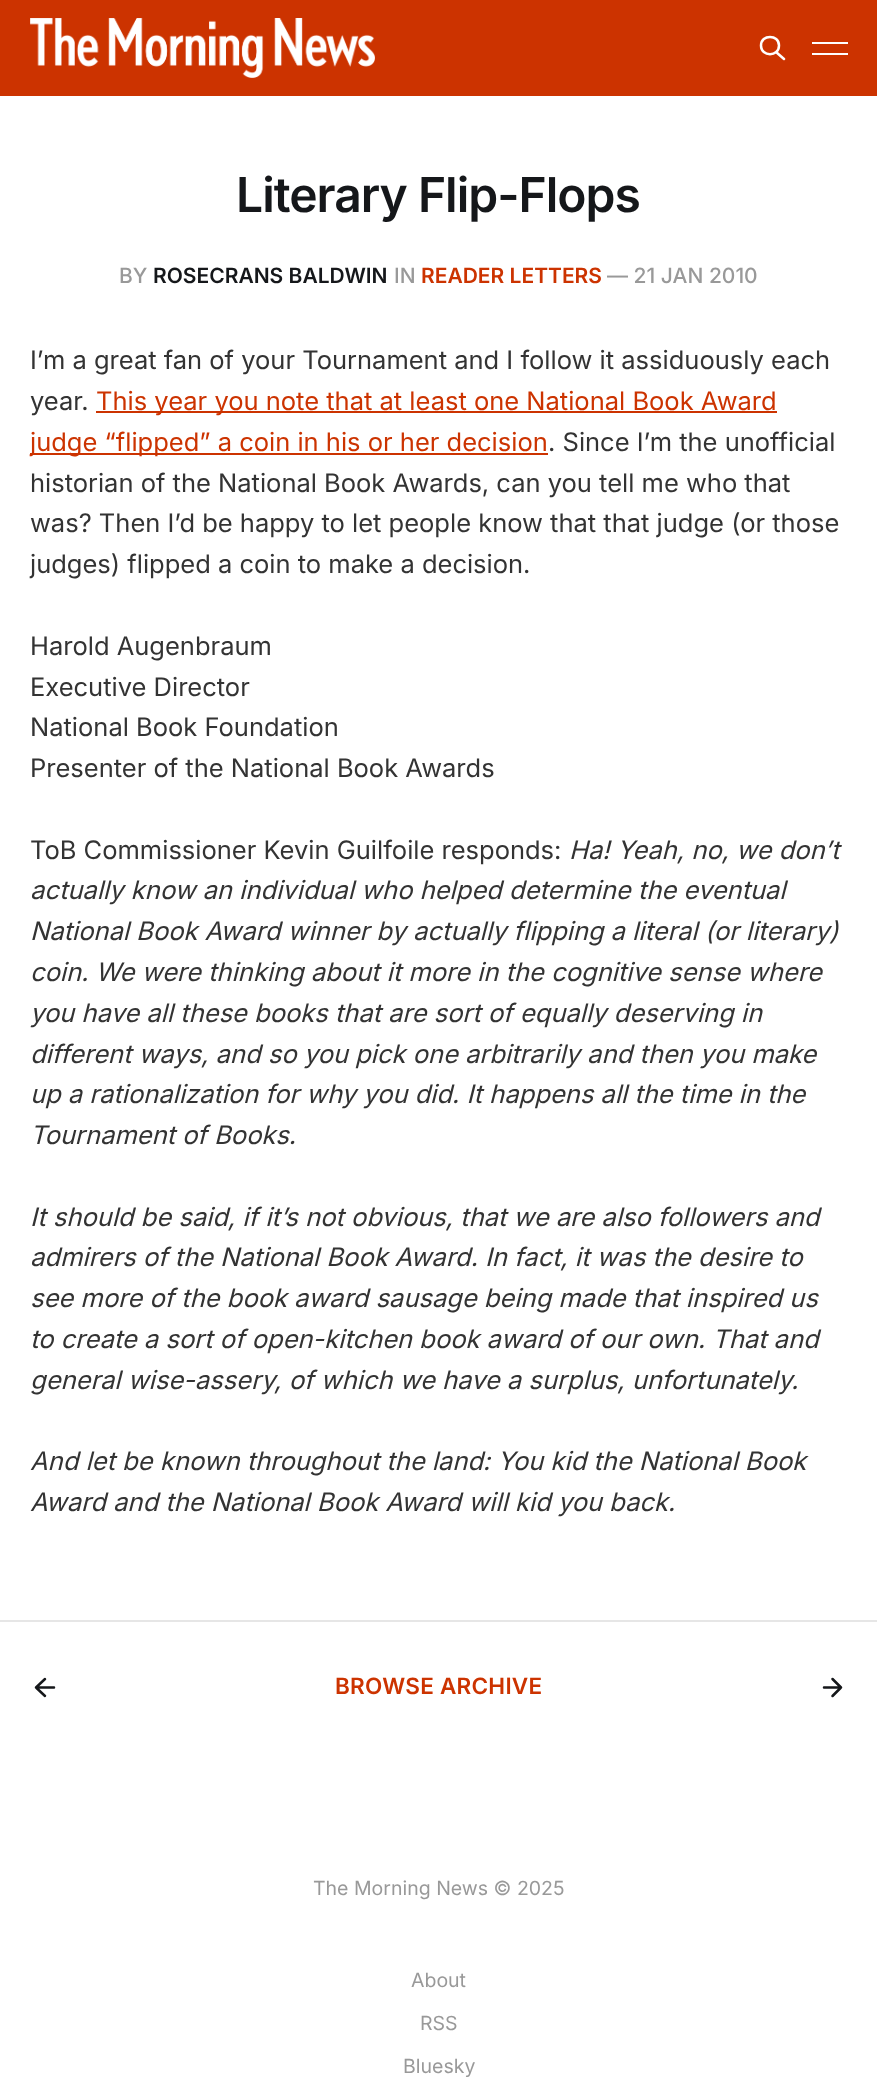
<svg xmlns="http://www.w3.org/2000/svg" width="877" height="2089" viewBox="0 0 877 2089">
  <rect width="100%" height="100%" fill="rgb(255,255,255)"/>
  <rect x="0" y="0" width="877" height="96" fill="rgb(204,51,0)"/>
  <image x="30" y="18" width="345" height="60" href="pic1.png"/>
  <path d="M784 59L776 52M779 45.5C779 57 761 57 761 45.5C761 34 779 34 779 45.5Z" fill="none" stroke="rgb(255,255,255)" stroke-width="2.5" stroke-linecap="round" stroke-linejoin="round"/>
  <rect x="812" y="42" width="36" height="2" fill="rgb(255,255,255)"/>
  <rect x="812" y="53" width="36" height="2" fill="rgb(255,255,255)"/>
  <text x="236" y="212" font-family="Inter" font-size="48" font-weight="600" letter-spacing="-1" fill="rgb(21,23,26)">Literary Flip-Flops</text>
  <text x="119" y="283" font-family="Inter" font-size="21" font-weight="500" fill="rgb(153,153,153)">BY</text>
  <text x="153" y="283" font-family="Inter" font-size="21" font-weight="600" fill="rgb(21,23,26)">ROSECRANS BALDWIN</text>
  <text x="394" y="283" font-family="Inter" font-size="21" font-weight="500" fill="rgb(153,153,153)">IN</text>
  <text x="421" y="283" font-family="Inter" font-size="21" font-weight="600" fill="rgb(204,51,0)">READER LETTERS</text>
  <text x="607" y="283" font-family="Inter" font-size="21" font-weight="500" fill="rgb(153,153,153)">— 21 JAN 2010</text>
  <g font-family="Inter" font-size="25.5" fill="rgb(51,51,51)">
    <text>
      <tspan x="30" y="369">I’m a great fan of your Tournament and I follow it assiduously each</tspan>
      <tspan x="30" y="410">year.</tspan>
    </text>
  </g>
  <rect x="96" y="411" width="681" height="2" fill="rgb(204,51,0)"/>
  <text x="96" y="410" font-family="Inter" font-size="25.5" fill="rgb(204,51,0)">This year you note that at least one National Book Award</text>
  <rect x="30" y="453" width="518" height="2" fill="rgb(204,51,0)"/>
  <text x="30" y="451" font-family="Inter" font-size="25.5" fill="rgb(204,51,0)">judge “flipped” a coin in his or her decision</text>
  <g font-family="Inter" font-size="25.5" fill="rgb(51,51,51)">
    <text x="548" y="451">. Since I’m the unofficial</text>
    <text>
      <tspan x="30" y="492">historian of the National Book Awards, can you tell me who that</tspan>
      <tspan x="30" y="532">was? Then I’d be happy to let people know that that judge (or those</tspan>
      <tspan x="30" y="573">judges) flipped a coin to make a decision.</tspan>
    </text>
    <text>
      <tspan x="30" y="655">Harold Augenbraum</tspan>
      <tspan x="30" y="696">Executive Director</tspan>
      <tspan x="30" y="736">National Book Foundation</tspan>
      <tspan x="30" y="777">Presenter of the National Book Awards</tspan>
    </text>
    <text x="30" y="859">ToB Commissioner Kevin Guilfoile responds:</text>
  </g>
  <g font-family="Inter" font-size="25.5" font-style="italic" fill="rgb(51,51,51)">
    <text x="569" y="859">Ha! Yeah, no, we don’t</text>
    <text>
      <tspan x="30" y="899">actually know an individual who helped determine the eventual</tspan>
      <tspan x="30" y="940">National Book Award winner by actually flipping a literal (or literary)</tspan>
      <tspan x="30" y="981">coin. We were thinking about it more in the cognitive sense where</tspan>
      <tspan x="30" y="1022">you have all these books that are sort of equally deserving in</tspan>
      <tspan x="30" y="1063">different ways, and so you pick one arbitrarily and then you make</tspan>
      <tspan x="30" y="1103">up a rationalization for why you did. It happens all the time in the</tspan>
      <tspan x="30" y="1144">Tournament of Books.</tspan>
    </text>
    <text>
      <tspan x="30" y="1226">It should be said, if it’s not obvious, that we are also followers and</tspan>
      <tspan x="30" y="1266">admirers of the National Book Award. In fact, it was the desire to</tspan>
      <tspan x="30" y="1307">see more of the book award sausage being made that inspired us</tspan>
      <tspan x="30" y="1348">to create a sort of open-kitchen book award of our own. That and</tspan>
      <tspan x="30" y="1389">general wise-assery, of which we have a surplus, unfortunately.</tspan>
    </text>
    <text>
      <tspan x="30" y="1470">And let be known throughout the land: You kid the National Book</tspan>
      <tspan x="30" y="1511">Award and the National Book Award will kid you back.</tspan>
    </text>
  </g>
  <rect x="0" y="1620" width="877" height="2" fill="rgb(230,230,230)"/>
  <path d="M54 1687.5H36M45 1696L36 1687.5L45 1679" fill="none" stroke="rgb(21,23,26)" stroke-width="2.5" stroke-linecap="round" stroke-linejoin="round"/>
  <text x="335" y="1694" font-family="Inter" font-size="22.5" font-weight="600" letter-spacing="0.25" fill="rgb(204,51,0)">BROWSE ARCHIVE</text>
  <path d="M824 1687.5H841M832.5 1679L841 1687.5L832.5 1696" fill="none" stroke="rgb(21,23,26)" stroke-width="2.5" stroke-linecap="round" stroke-linejoin="round"/>
  <g font-family="Inter" font-size="19.5" fill="rgb(153,153,153)">
    <text x="313" y="1895">The Morning News © 2025</text>
    <text x="411" y="1987">About</text>
    <text x="420" y="2030">RSS</text>
    <text x="403" y="2073">Bluesky</text>
  </g>
</svg>
